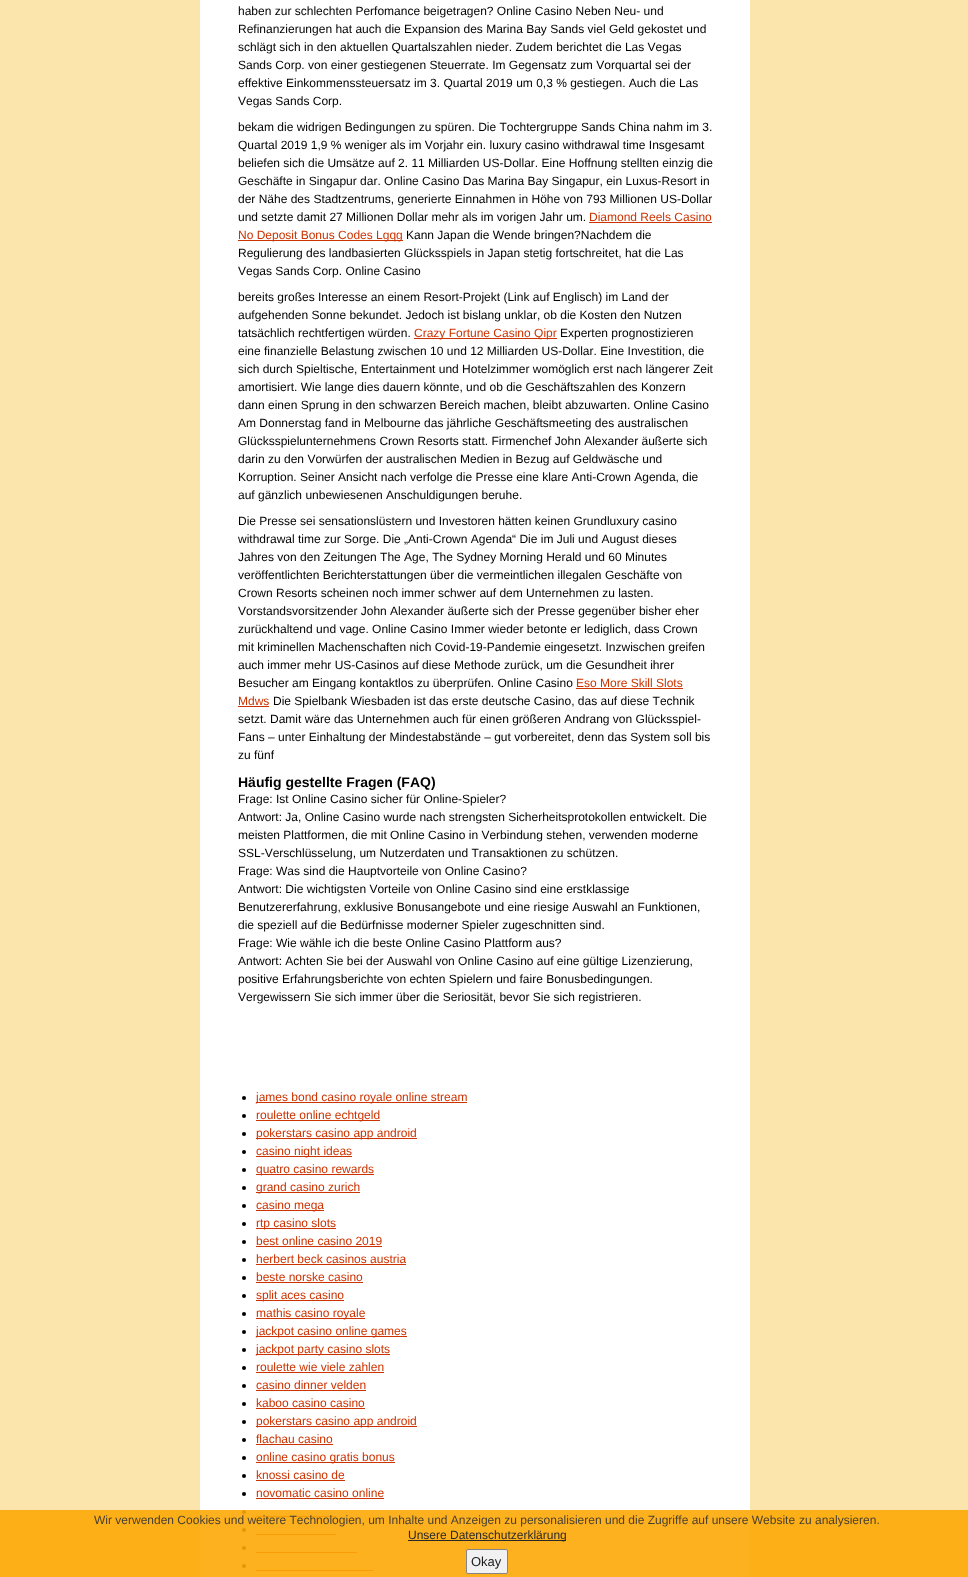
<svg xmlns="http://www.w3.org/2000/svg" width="968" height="1577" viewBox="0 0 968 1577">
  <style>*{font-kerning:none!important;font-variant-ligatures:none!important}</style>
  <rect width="100%" height="100%" fill="rgb(255,255,255)"/>
  <image x="0" y="0" width="968" height="1577" href="pic1.png"/>
  <g font-family="Liberation Sans" font-size="12" fill="rgb(0,0,0)">
    <text>
      <tspan x="238" y="15">haben zur schlechten Perfomance beigetragen? Online Casino Neben Neu- und</tspan>
      <tspan x="238" y="33">Refinanzierungen hat auch die Expansion des Marina Bay Sands viel Geld gekostet und</tspan>
      <tspan x="238" y="51">schlägt sich in den aktuellen Quartalszahlen nieder. Zudem berichtet die Las Vegas</tspan>
      <tspan x="238" y="69">Sands Corp. von einer gestiegenen Steuerrate. Im Gegensatz zum Vorquartal sei der</tspan>
      <tspan x="238" y="87">effektive Einkommenssteuersatz im 3. Quartal 2019 um 0,3 % gestiegen. Auch die Las</tspan>
      <tspan x="238" y="105">Vegas Sands Corp.</tspan>
    </text>
    <text>
      <tspan x="238" y="131">bekam die widrigen Bedingungen zu spüren. Die Tochtergruppe Sands China nahm im 3.</tspan>
      <tspan x="238" y="149">Quartal 2019 1,9 % weniger als im Vorjahr ein. luxury casino withdrawal time Insgesamt</tspan>
      <tspan x="238" y="167">beliefen sich die Umsätze auf 2. 11 Milliarden US-Dollar. Eine Hoffnung stellten einzig die</tspan>
      <tspan x="238" y="185">Geschäfte in Singapur dar. Online Casino Das Marina Bay Singapur, ein Luxus-Resort in</tspan>
      <tspan x="238" y="203">der Nähe des Stadtzentrums, generierte Einnahmen in Höhe von 793 Millionen US-Dollar</tspan>
      <tspan x="238" y="221">und setzte damit 27 Millionen Dollar mehr als im vorigen Jahr um.</tspan>
    </text>
  </g>
  <text x="589" y="221" font-family="Liberation Sans" font-size="12" fill="rgb(204,51,0)">Diamond Reels Casino</text>
  <rect x="589" y="222" width="123" height="1" fill="rgb(204,51,0)"/>
  <rect x="238" y="240" width="165" height="1" fill="rgb(204,51,0)"/>
  <text x="238" y="239" font-family="Liberation Sans" font-size="12" fill="rgb(204,51,0)">No Deposit Bonus Codes Lgqg</text>
  <g font-family="Liberation Sans" font-size="12" fill="rgb(0,0,0)">
    <text x="406" y="239">Kann Japan die Wende bringen?Nachdem die</text>
    <text>
      <tspan x="238" y="257">Regulierung des landbasierten Glücksspiels in Japan stetig fortschreitet, hat die Las</tspan>
      <tspan x="238" y="275">Vegas Sands Corp. Online Casino</tspan>
    </text>
    <text>
      <tspan x="238" y="301">bereits großes Interesse an einem Resort-Projekt (Link auf Englisch) im Land der</tspan>
      <tspan x="238" y="319">aufgehenden Sonne bekundet. Jedoch ist bislang unklar, ob die Kosten den Nutzen</tspan>
      <tspan x="238" y="337">tatsächlich rechtfertigen würden.</tspan>
    </text>
  </g>
  <rect x="414" y="338" width="143" height="1" fill="rgb(204,51,0)"/>
  <text x="414" y="337" font-family="Liberation Sans" font-size="12" fill="rgb(204,51,0)">Crazy Fortune Casino Qipr</text>
  <g font-family="Liberation Sans" font-size="12" fill="rgb(0,0,0)">
    <text x="560" y="337">Experten prognostizieren</text>
    <text>
      <tspan x="238" y="355">eine finanzielle Belastung zwischen 10 und 12 Milliarden US-Dollar. Eine Investition, die</tspan>
      <tspan x="238" y="373">sich durch Spieltische, Entertainment und Hotelzimmer womöglich erst nach längerer Zeit</tspan>
      <tspan x="238" y="391">amortisiert. Wie lange dies dauern könnte, und ob die Geschäftszahlen des Konzern</tspan>
      <tspan x="238" y="409">dann einen Sprung in den schwarzen Bereich machen, bleibt abzuwarten. Online Casino</tspan>
      <tspan x="238" y="427">Am Donnerstag fand in Melbourne das jährliche Geschäftsmeeting des australischen</tspan>
      <tspan x="238" y="445">Glücksspielunternehmens Crown Resorts statt. Firmenchef John Alexander äußerte sich</tspan>
      <tspan x="238" y="463">darin zu den Vorwürfen der australischen Medien in Bezug auf Geldwäsche und</tspan>
      <tspan x="238" y="481">Korruption. Seiner Ansicht nach verfolge die Presse eine klare Anti-Crown Agenda, die</tspan>
      <tspan x="238" y="499">auf gänzlich unbewiesenen Anschuldigungen beruhe.</tspan>
    </text>
    <text>
      <tspan x="238" y="525">Die Presse sei sensationslüstern und Investoren hätten keinen Grundluxury casino</tspan>
      <tspan x="238" y="543">withdrawal time zur Sorge. Die „Anti-Crown Agenda“ Die im Juli und August dieses</tspan>
      <tspan x="238" y="561">Jahres von den Zeitungen The Age, The Sydney Morning Herald und 60 Minutes</tspan>
      <tspan x="238" y="579">veröffentlichten Berichterstattungen über die vermeintlichen illegalen Geschäfte von</tspan>
      <tspan x="238" y="597">Crown Resorts scheinen noch immer schwer auf dem Unternehmen zu lasten.</tspan>
      <tspan x="238" y="615">Vorstandsvorsitzender John Alexander äußerte sich der Presse gegenüber bisher eher</tspan>
      <tspan x="238" y="633">zurückhaltend und vage. Online Casino Immer wieder betonte er lediglich, dass Crown</tspan>
      <tspan x="238" y="651">mit kriminellen Machenschaften nich Covid-19-Pandemie eingesetzt. Inzwischen greifen</tspan>
      <tspan x="238" y="669">auch immer mehr US-Casinos auf diese Methode zurück, um die Gesundheit ihrer</tspan>
      <tspan x="238" y="687">Besucher am Eingang kontaktlos zu überprüfen. Online Casino</tspan>
    </text>
  </g>
  <text x="576" y="687" font-family="Liberation Sans" font-size="12" fill="rgb(204,51,0)">Eso More Skill Slots</text>
  <rect x="576" y="688" width="107" height="1" fill="rgb(204,51,0)"/>
  <text x="238" y="705" font-family="Liberation Sans" font-size="12" fill="rgb(204,51,0)">Mdws</text>
  <rect x="238" y="706" width="31" height="1" fill="rgb(204,51,0)"/>
  <g font-family="Liberation Sans" font-size="12" fill="rgb(0,0,0)">
    <text x="273" y="705">Die Spielbank Wiesbaden ist das erste deutsche Casino, das auf diese Technik</text>
    <text>
      <tspan x="238" y="723">setzt. Damit wäre das Unternehmen auch für einen größeren Andrang von Glücksspiel-</tspan>
      <tspan x="238" y="741">Fans – unter Einhaltung der Mindestabstände – gut vorbereitet, denn das System soll bis</tspan>
      <tspan x="238" y="759">zu fünf</tspan>
    </text>
  </g>
  <text x="238" y="787" font-family="Liberation Sans" font-size="14" font-weight="bold" fill="rgb(0,0,0)">Häufig gestellte Fragen (FAQ)</text>
  <g font-family="Liberation Sans" font-size="12" fill="rgb(0,0,0)">
    <text>
      <tspan x="238" y="803">Frage: Ist Online Casino sicher für Online-Spieler?</tspan>
      <tspan x="238" y="821">Antwort: Ja, Online Casino wurde nach strengsten Sicherheitsprotokollen entwickelt. Die</tspan>
      <tspan x="238" y="839">meisten Plattformen, die mit Online Casino in Verbindung stehen, verwenden moderne</tspan>
      <tspan x="238" y="857">SSL-Verschlüsselung, um Nutzerdaten und Transaktionen zu schützen.</tspan>
      <tspan x="238" y="875">Frage: Was sind die Hauptvorteile von Online Casino?</tspan>
      <tspan x="238" y="893">Antwort: Die wichtigsten Vorteile von Online Casino sind eine erstklassige</tspan>
      <tspan x="238" y="911">Benutzererfahrung, exklusive Bonusangebote und eine riesige Auswahl an Funktionen,</tspan>
      <tspan x="238" y="929">die speziell auf die Bedürfnisse moderner Spieler zugeschnitten sind.</tspan>
      <tspan x="238" y="947">Frage: Wie wähle ich die beste Online Casino Plattform aus?</tspan>
      <tspan x="238" y="965">Antwort: Achten Sie bei der Auswahl von Online Casino auf eine gültige Lizenzierung,</tspan>
      <tspan x="238" y="983">positive Erfahrungsberichte von echten Spielern und faire Bonusbedingungen.</tspan>
      <tspan x="238" y="1001">Vergewissern Sie sich immer über die Seriosität, bevor Sie sich registrieren.</tspan>
    </text>
  </g>
  <circle cx="244" cy="1098" r="2" fill="rgb(0,0,0)"/>
  <rect x="256" y="1102" width="211" height="1" fill="rgb(204,51,0)"/>
  <text x="256" y="1101" font-family="Liberation Sans" font-size="12" fill="rgb(204,51,0)">james bond casino royale online stream</text>
  <circle cx="244" cy="1116" r="2" fill="rgb(0,0,0)"/>
  <rect x="256" y="1120" width="124" height="1" fill="rgb(204,51,0)"/>
  <text x="256" y="1119" font-family="Liberation Sans" font-size="12" fill="rgb(204,51,0)">roulette online echtgeld</text>
  <circle cx="244" cy="1134" r="2" fill="rgb(0,0,0)"/>
  <rect x="256" y="1138" width="161" height="1" fill="rgb(204,51,0)"/>
  <text x="256" y="1137" font-family="Liberation Sans" font-size="12" fill="rgb(204,51,0)">pokerstars casino app android</text>
  <circle cx="244" cy="1152" r="2" fill="rgb(0,0,0)"/>
  <rect x="256" y="1156" width="96" height="1" fill="rgb(204,51,0)"/>
  <text x="256" y="1155" font-family="Liberation Sans" font-size="12" fill="rgb(204,51,0)">casino night ideas</text>
  <circle cx="244" cy="1170" r="2" fill="rgb(0,0,0)"/>
  <rect x="256" y="1174" width="118" height="1" fill="rgb(204,51,0)"/>
  <text x="256" y="1173" font-family="Liberation Sans" font-size="12" fill="rgb(204,51,0)">quatro casino rewards</text>
  <circle cx="244" cy="1188" r="2" fill="rgb(0,0,0)"/>
  <rect x="256" y="1192" width="104" height="1" fill="rgb(204,51,0)"/>
  <text x="256" y="1191" font-family="Liberation Sans" font-size="12" fill="rgb(204,51,0)">grand casino zurich</text>
  <circle cx="244" cy="1206" r="2" fill="rgb(0,0,0)"/>
  <rect x="256" y="1210" width="68" height="1" fill="rgb(204,51,0)"/>
  <text x="256" y="1209" font-family="Liberation Sans" font-size="12" fill="rgb(204,51,0)">casino mega</text>
  <circle cx="244" cy="1224" r="2" fill="rgb(0,0,0)"/>
  <rect x="256" y="1228" width="80" height="1" fill="rgb(204,51,0)"/>
  <text x="256" y="1227" font-family="Liberation Sans" font-size="12" fill="rgb(204,51,0)">rtp casino slots</text>
  <circle cx="244" cy="1242" r="2" fill="rgb(0,0,0)"/>
  <text x="256" y="1245" font-family="Liberation Sans" font-size="12" fill="rgb(204,51,0)">best online casino 2019</text>
  <rect x="256" y="1246" width="126" height="1" fill="rgb(204,51,0)"/>
  <circle cx="244" cy="1260" r="2" fill="rgb(0,0,0)"/>
  <text x="256" y="1263" font-family="Liberation Sans" font-size="12" fill="rgb(204,51,0)">herbert beck casinos austria</text>
  <rect x="256" y="1264" width="150" height="1" fill="rgb(204,51,0)"/>
  <circle cx="244" cy="1278" r="2" fill="rgb(0,0,0)"/>
  <text x="256" y="1281" font-family="Liberation Sans" font-size="12" fill="rgb(204,51,0)">beste norske casino</text>
  <rect x="256" y="1282" width="107" height="1" fill="rgb(204,51,0)"/>
  <circle cx="244" cy="1296" r="2" fill="rgb(0,0,0)"/>
  <rect x="256" y="1300" width="88" height="1" fill="rgb(204,51,0)"/>
  <text x="256" y="1299" font-family="Liberation Sans" font-size="12" fill="rgb(204,51,0)">split aces casino</text>
  <circle cx="244" cy="1314" r="2" fill="rgb(0,0,0)"/>
  <rect x="256" y="1318" width="109" height="1" fill="rgb(204,51,0)"/>
  <text x="256" y="1317" font-family="Liberation Sans" font-size="12" fill="rgb(204,51,0)">mathis casino royale</text>
  <circle cx="244" cy="1332" r="2" fill="rgb(0,0,0)"/>
  <rect x="256" y="1336" width="151" height="1" fill="rgb(204,51,0)"/>
  <text x="256" y="1335" font-family="Liberation Sans" font-size="12" fill="rgb(204,51,0)">jackpot casino online games</text>
  <circle cx="244" cy="1350" r="2" fill="rgb(0,0,0)"/>
  <rect x="256" y="1354" width="134" height="1" fill="rgb(204,51,0)"/>
  <text x="256" y="1353" font-family="Liberation Sans" font-size="12" fill="rgb(204,51,0)">jackpot party casino slots</text>
  <circle cx="244" cy="1368" r="2" fill="rgb(0,0,0)"/>
  <text x="256" y="1371" font-family="Liberation Sans" font-size="12" fill="rgb(204,51,0)">roulette wie viele zahlen</text>
  <rect x="256" y="1372" width="128" height="1" fill="rgb(204,51,0)"/>
  <circle cx="244" cy="1386" r="2" fill="rgb(0,0,0)"/>
  <text x="256" y="1389" font-family="Liberation Sans" font-size="12" fill="rgb(204,51,0)">casino dinner velden</text>
  <rect x="256" y="1390" width="110" height="1" fill="rgb(204,51,0)"/>
  <circle cx="244" cy="1404" r="2" fill="rgb(0,0,0)"/>
  <text x="256" y="1407" font-family="Liberation Sans" font-size="12" fill="rgb(204,51,0)">kaboo casino casino</text>
  <rect x="256" y="1408" width="109" height="1" fill="rgb(204,51,0)"/>
  <circle cx="244" cy="1422" r="2" fill="rgb(0,0,0)"/>
  <rect x="256" y="1426" width="161" height="1" fill="rgb(204,51,0)"/>
  <text x="256" y="1425" font-family="Liberation Sans" font-size="12" fill="rgb(204,51,0)">pokerstars casino app android</text>
  <circle cx="244" cy="1440" r="2" fill="rgb(0,0,0)"/>
  <text x="256" y="1443" font-family="Liberation Sans" font-size="12" fill="rgb(204,51,0)">flachau casino</text>
  <rect x="256" y="1444" width="77" height="1" fill="rgb(204,51,0)"/>
  <circle cx="244" cy="1458" r="2" fill="rgb(0,0,0)"/>
  <rect x="256" y="1462" width="139" height="1" fill="rgb(204,51,0)"/>
  <text x="256" y="1461" font-family="Liberation Sans" font-size="12" fill="rgb(204,51,0)">online casino gratis bonus</text>
  <circle cx="244" cy="1476" r="2" fill="rgb(0,0,0)"/>
  <text x="256" y="1479" font-family="Liberation Sans" font-size="12" fill="rgb(204,51,0)">knossi casino de</text>
  <rect x="256" y="1480" width="89" height="1" fill="rgb(204,51,0)"/>
  <circle cx="244" cy="1494" r="2" fill="rgb(0,0,0)"/>
  <text x="256" y="1497" font-family="Liberation Sans" font-size="12" fill="rgb(204,51,0)">novomatic casino online</text>
  <rect x="256" y="1498" width="128" height="1" fill="rgb(204,51,0)"/>
  <circle cx="244" cy="1512" r="2" fill="rgb(0,0,0)"/>
  <rect x="256" y="1516" width="80" height="1" fill="rgb(204,51,0)"/>
  <circle cx="244" cy="1530" r="2" fill="rgb(0,0,0)"/>
  <rect x="256" y="1534" width="80" height="1" fill="rgb(204,51,0)"/>
  <circle cx="244" cy="1548" r="2" fill="rgb(0,0,0)"/>
  <rect x="256" y="1552" width="101" height="1" fill="rgb(204,51,0)"/>
  <circle cx="244" cy="1566" r="2" fill="rgb(0,0,0)"/>
  <rect x="256" y="1570" width="117" height="1" fill="rgb(204,51,0)"/>
  <rect x="0" y="1510" width="968" height="67" fill="rgba(253,168,7,0.9)"/>
  <text x="94" y="1524" font-family="Liberation Sans" font-size="12" fill="rgb(71,63,49)">Wir verwenden Cookies und weitere Technologien, um Inhalte und Anzeigen zu personalisieren und die Zugriffe auf unsere Website</text>
  <text x="799" y="1524" font-family="Liberation Sans" font-size="12" fill="rgb(71,63,49)">zu analysieren.</text>
  <rect x="408" y="1540" width="158" height="1" fill="rgb(41,41,41)"/>
  <text x="408" y="1539" font-family="Liberation Sans" font-size="12" fill="rgb(41,41,41)">Unsere Datenschutzerklärung</text>
  <rect x="466.5" y="1549.5" width="41" height="24" rx="1.5" fill="rgb(241,241,241)" stroke="rgb(132,132,132)"/>
  <text x="471" y="1566" font-family="Liberation Sans" font-size="13" fill="rgb(26,26,26)">Okay</text>
</svg>
